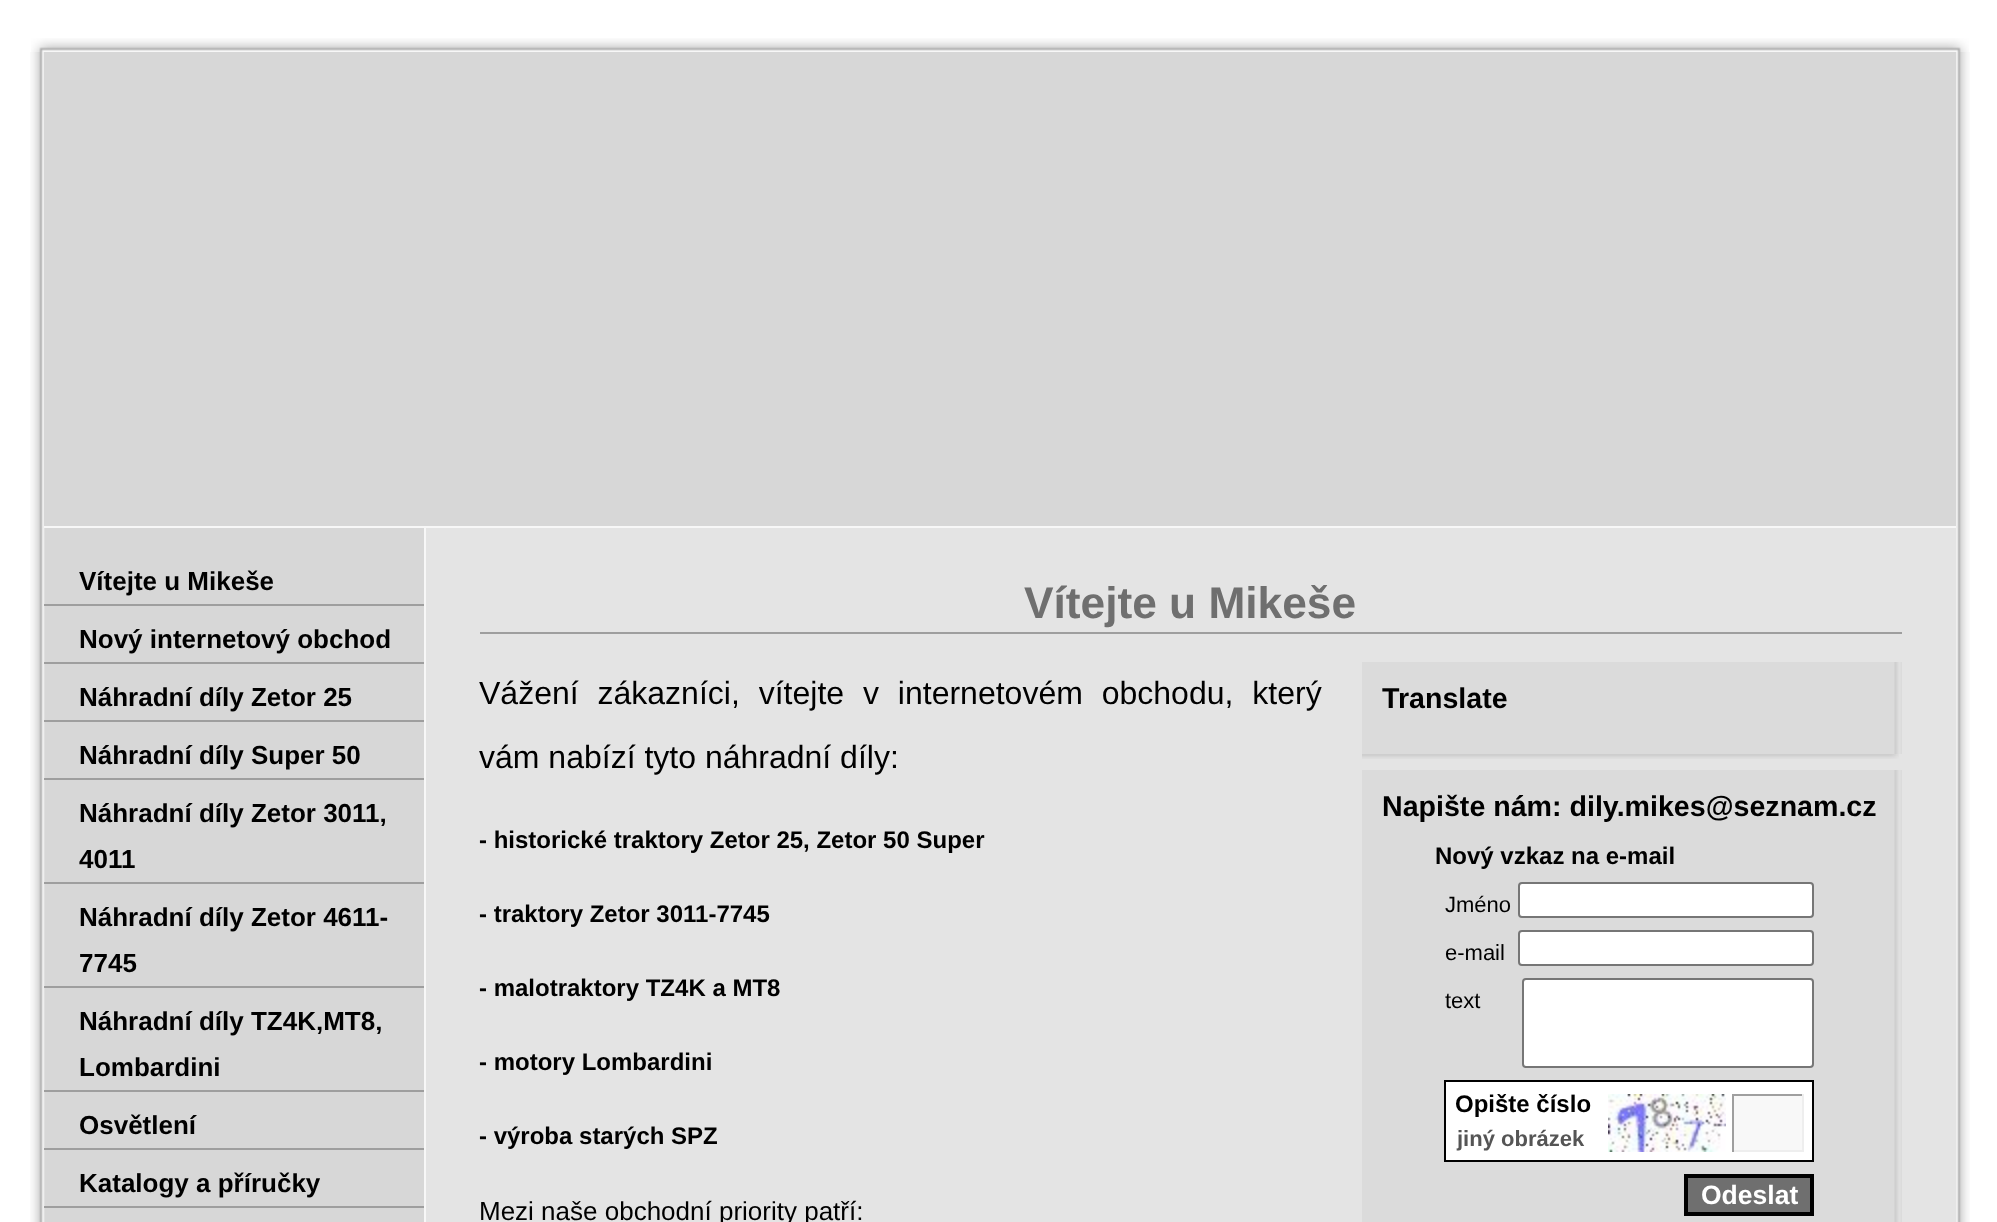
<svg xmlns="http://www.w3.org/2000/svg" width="1997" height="1222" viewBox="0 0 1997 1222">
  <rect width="100%" height="100%" fill="rgb(255,255,255)"/>
  <image x="31" y="38" width="1938" height="14" href="pic1.png"/>
  <image x="30" y="52" width="1940" height="1170" href="pic2.png"/>
  <rect x="44" y="52" width="1912" height="474" fill="rgb(215,215,215)"/>
  <rect x="44" y="526" width="1912" height="2" fill="rgb(247,247,247)"/>
  <rect x="44" y="604" width="380" height="2" fill="rgb(158,158,158)"/>
  <text x="79" y="590" font-family="Liberation Sans" font-size="26" font-weight="bold" fill="rgb(0,0,0)">Vítejte u Mikeše</text>
  <rect x="44" y="662" width="380" height="2" fill="rgb(158,158,158)"/>
  <text x="79" y="648" font-family="Liberation Sans" font-size="26" font-weight="bold" fill="rgb(0,0,0)">Nový internetový obchod</text>
  <rect x="44" y="720" width="380" height="2" fill="rgb(158,158,158)"/>
  <text x="79" y="706" font-family="Liberation Sans" font-size="26" font-weight="bold" fill="rgb(0,0,0)">Náhradní díly Zetor 25</text>
  <rect x="44" y="778" width="380" height="2" fill="rgb(158,158,158)"/>
  <text x="79" y="764" font-family="Liberation Sans" font-size="26" font-weight="bold" fill="rgb(0,0,0)">Náhradní díly Super 50</text>
  <rect x="44" y="882" width="380" height="2" fill="rgb(158,158,158)"/>
  <g font-family="Liberation Sans" font-size="26" font-weight="bold" fill="rgb(0,0,0)">
    <text>
      <tspan x="79" y="822">Náhradní díly Zetor 3011‚</tspan>
      <tspan x="79" y="868">4011</tspan>
    </text>
  </g>
  <rect x="44" y="986" width="380" height="2" fill="rgb(158,158,158)"/>
  <g font-family="Liberation Sans" font-size="26" font-weight="bold" fill="rgb(0,0,0)">
    <text>
      <tspan x="79" y="926">Náhradní díly Zetor 4611-</tspan>
      <tspan x="79" y="972">7745</tspan>
    </text>
  </g>
  <rect x="44" y="1090" width="380" height="2" fill="rgb(158,158,158)"/>
  <g font-family="Liberation Sans" font-size="26" font-weight="bold" fill="rgb(0,0,0)">
    <text>
      <tspan x="79" y="1030">Náhradní díly TZ4K‚MT8‚</tspan>
      <tspan x="79" y="1076">Lombardini</tspan>
    </text>
  </g>
  <rect x="44" y="1148" width="380" height="2" fill="rgb(158,158,158)"/>
  <text x="79" y="1134" font-family="Liberation Sans" font-size="26" font-weight="bold" fill="rgb(0,0,0)">Osvětlení</text>
  <rect x="44" y="1206" width="380" height="2" fill="rgb(158,158,158)"/>
  <text x="79" y="1192" font-family="Liberation Sans" font-size="26" font-weight="bold" fill="rgb(0,0,0)">Katalogy a příručky</text>
  <rect x="426" y="528" width="1530" height="694" fill="rgb(228,228,228)"/>
  <rect x="424" y="528" width="2" height="694" fill="rgb(247,247,247)"/>
  <rect x="480" y="632" width="1422" height="2" fill="rgb(158,158,158)"/>
  <text x="1024" y="618" font-family="Liberation Sans" font-size="44.25" font-weight="bold" fill="rgb(111,111,111)">Vítejte u Mikeše</text>
  <g font-family="Liberation Sans" font-size="32" fill="rgb(0,0,0)">
    <text x="479" y="704" word-spacing="10">Vážení zákazníci, vítejte v internetovém obchodu, který</text>
    <text x="479" y="768">vám nabízí tyto náhradní díly:</text>
  </g>
  <g font-family="Liberation Sans" font-size="24" font-weight="bold" fill="rgb(0,0,0)">
    <text x="479" y="848">- historické traktory Zetor 25, Zetor 50 Super</text>
    <text x="479" y="922">- traktory Zetor 3011-7745</text>
    <text x="479" y="996">- malotraktory TZ4K a MT8</text>
    <text x="479" y="1070">- motory Lombardini</text>
    <text x="479" y="1144">- výroba starých SPZ</text>
  </g>
  <text x="479" y="1220" font-family="Liberation Sans" font-size="26" fill="rgb(0,0,0)">Mezi naše obchodní priority patří:</text>
  <image x="1362" y="754" width="537" height="5" href="pic3.png"/>
  <image x="1362" y="662" width="540" height="52" href="pic4.png"/>
  <text x="1382" y="708" font-family="Liberation Sans" font-size="28.6" font-weight="bold" fill="rgb(0,0,0)">Translate</text>
  <image x="1362" y="714" width="540" height="40" href="pic5.png"/>
  <image x="1362" y="770" width="540" height="52" href="pic4.png"/>
  <text x="1382" y="816" font-family="Liberation Sans" font-size="28.6" font-weight="bold" fill="rgb(0,0,0)">Napište nám: dily.mikes@seznam.cz</text>
  <image x="1362" y="822" width="540" height="400" href="pic6.png"/>
  <text x="1435" y="864" font-family="Liberation Sans" font-size="24" font-weight="bold" fill="rgb(0,0,0)">Nový vzkaz na e-mail</text>
  <text x="1445" y="912" font-family="Liberation Sans" font-size="22" fill="rgb(0,0,0)">Jméno</text>
  <rect x="1519" y="883" width="294" height="34" rx="3" fill="rgb(255,255,255)" stroke="rgb(118,118,118)" stroke-width="2"/>
  <text x="1445" y="960" font-family="Liberation Sans" font-size="22" fill="rgb(0,0,0)">e-mail</text>
  <rect x="1519" y="931" width="294" height="34" rx="3" fill="rgb(255,255,255)" stroke="rgb(118,118,118)" stroke-width="2"/>
  <text x="1445" y="1008" font-family="Liberation Sans" font-size="22" fill="rgb(0,0,0)">text</text>
  <rect x="1523" y="979" width="290" height="88" rx="3" fill="rgb(255,255,255)" stroke="rgb(118,118,118)" stroke-width="2"/>
  <rect x="1445" y="1081" width="368" height="80" fill="rgb(255,255,255)" stroke="rgb(0,0,0)" stroke-width="2"/>
  <text x="1455" y="1112" font-family="Liberation Sans" font-size="24" font-weight="bold" fill="rgb(0,0,0)">Opište číslo</text>
  <image x="1608" y="1094" width="118" height="58" href="pic7.png"/>
  <rect x="1734" y="1096" width="68" height="54" fill="rgb(248,248,248)"/>
  <rect x="1732" y="1094" width="72" height="2" fill="rgb(159,159,159)"/>
  <rect x="1802" y="1094" width="2" height="58" fill="rgb(238,238,238)"/>
  <rect x="1732" y="1150" width="72" height="2" fill="rgb(238,238,238)"/>
  <rect x="1732" y="1094" width="2" height="58" fill="rgb(159,159,159)"/>
  <text x="1457" y="1146" font-family="Liberation Sans" font-size="22" font-weight="bold" fill="rgb(85,85,85)">jiný obrázek</text>
  <rect x="1686" y="1176" width="126" height="38" fill="rgb(111,111,111)" stroke="rgb(0,0,0)" stroke-width="4"/>
  <text x="1701" y="1204" font-family="Liberation Sans" font-size="26.5" font-weight="bold" fill="rgb(255,255,255)">Odeslat</text>
</svg>
